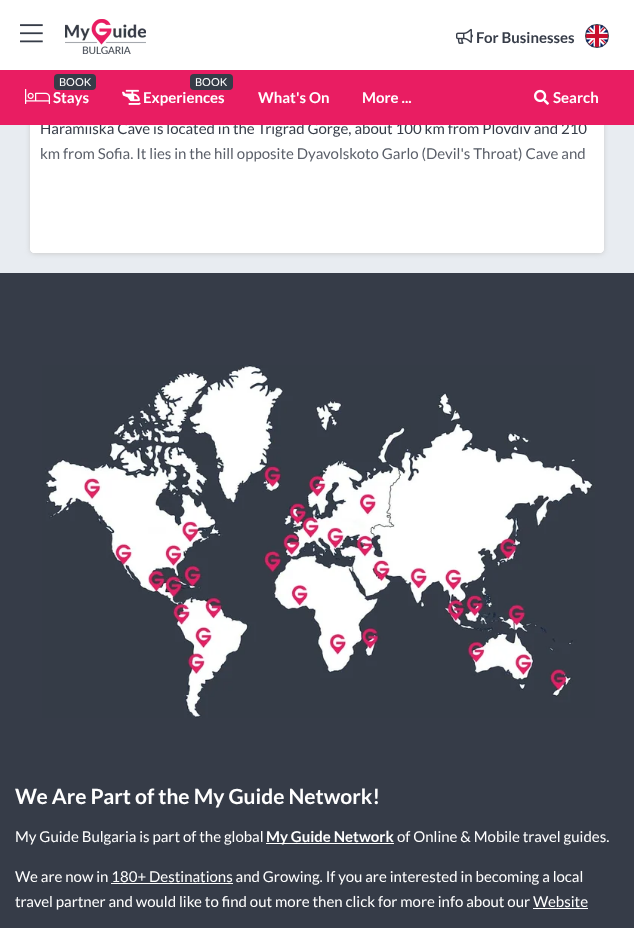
<svg xmlns="http://www.w3.org/2000/svg" width="634" height="928" viewBox="0 0 634 928">
  <defs>
    <linearGradient id="g1" gradientUnits="userSpaceOnUse" x1="317" y1="133" x2="317" y2="253"><stop offset="0" stop-color="rgb(255,255,255)" stop-opacity="0"/><stop offset="1" stop-color="rgb(255,255,255)"/></linearGradient>
  </defs>
  <rect width="100%" height="100%" fill="rgb(232,236,241)"/>
  <rect x="30" y="-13" width="574" height="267" rx="5" fill="rgb(204,204,204)" filter="blur(2.5px)"/>
  <rect x="30" y="-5" width="574" height="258" rx="5" fill="rgb(255,255,255)"/>
  <rect x="0" y="0" width="634" height="70" fill="rgb(255,255,255)"/>
  <image x="20" y="24" width="23" height="19" href="pic1.png"/>
  <image x="65" y="19" width="81" height="35" href="pic2.png"/>
  <image x="456" y="28" width="17" height="16" href="pic3.png"/>
  <text x="476" y="43" font-family="Lato" font-size="15" font-weight="bold" fill="rgb(54,60,72)">For Businesses</text>
  <image x="586" y="25" width="22" height="22" href="pic4.png"/>
  <circle cx="597" cy="36" r="11.5" fill="none" stroke="rgb(54,60,72)"/>
  <text x="40" y="134" font-family="Lato" font-size="15" fill="rgb(54,60,72)">Haramiiska Cave is located in the Trigrad Gorge, about 100 km from Plovdiv and 210</text>
  <rect x="0" y="70" width="634" height="55" fill="rgb(233,29,98)"/>
  <rect x="54" y="74" width="42" height="16" rx="4" fill="rgb(54,60,72)"/>
  <text x="59" y="86" font-family="Lato" font-size="11" fill="rgb(255,255,255)">BOOK</text>
  <image x="25" y="89" width="25" height="15" href="pic5.png"/>
  <text x="53" y="103" font-family="Lato" font-size="15" font-weight="bold" fill="rgb(255,255,255)">Stays</text>
  <rect x="190" y="74" width="43" height="16" rx="4" fill="rgb(54,60,72)"/>
  <text x="195" y="86" font-family="Lato" font-size="11" fill="rgb(255,255,255)">BOOK</text>
  <image x="122" y="89" width="19" height="16" href="pic6.png"/>
  <g font-family="Lato" font-size="15" font-weight="bold" fill="rgb(255,255,255)">
    <text x="143" y="103">Experiences</text>
    <text x="258" y="103">What's On</text>
    <text x="362" y="103">More ...</text>
  </g>
  <image x="534" y="89" width="15" height="16" href="pic7.png"/>
  <text x="553" y="103" font-family="Lato" font-size="15" font-weight="bold" fill="rgb(255,255,255)">Search</text>
  <text x="40" y="159" font-family="Lato" font-size="15" fill="rgb(54,60,72)">km from Sofia. It lies in the hill opposite Dyavolskoto Garlo (Devil's Throat) Cave and</text>
  <path d="M30 133H604V248C604 251 602 253 599 253H35C32 253 30 251 30 248Z" fill="url(#g1)"/>
  <path d="M30 198H604V248C604 251 602 253 599 253H35C32 253 30 251 30 248Z" fill="rgb(255,255,255)"/>
  <rect x="0" y="273" width="634" height="655" fill="rgb(54,60,72)"/>
  <image x="42" y="365" width="553" height="353" href="pic8.png"/>
  <text x="15" y="804" font-family="Lato" font-size="21" font-weight="bold" fill="rgb(255,255,255)">We Are Part of the My Guide Network!</text>
  <text x="15" y="842" font-family="Lato" font-size="15" fill="rgb(255,255,255)">My Guide Bulgaria is part of the global</text>
  <rect x="266" y="843" width="128" height="1" fill="rgb(255,255,255)"/>
  <text x="266" y="842" font-family="Lato" font-size="15" font-weight="bold" fill="rgb(255,255,255)">My Guide Network</text>
  <g font-family="Lato" font-size="15" fill="rgb(255,255,255)">
    <text x="397" y="842">of Online &amp; Mobile travel guides.</text>
    <text x="15" y="882">We are now in 180+ Destinations and Growing. If you are interested in becoming a local</text>
  </g>
  <rect x="111" y="883" width="122" height="1" fill="rgb(255,255,255)"/>
  <text x="15" y="907" font-family="Lato" font-size="15" fill="rgb(255,255,255)">travel partner and would like to find out more then click for more info about our Website</text>
  <rect x="533" y="908" width="55" height="1" fill="rgb(255,255,255)"/>
</svg>
